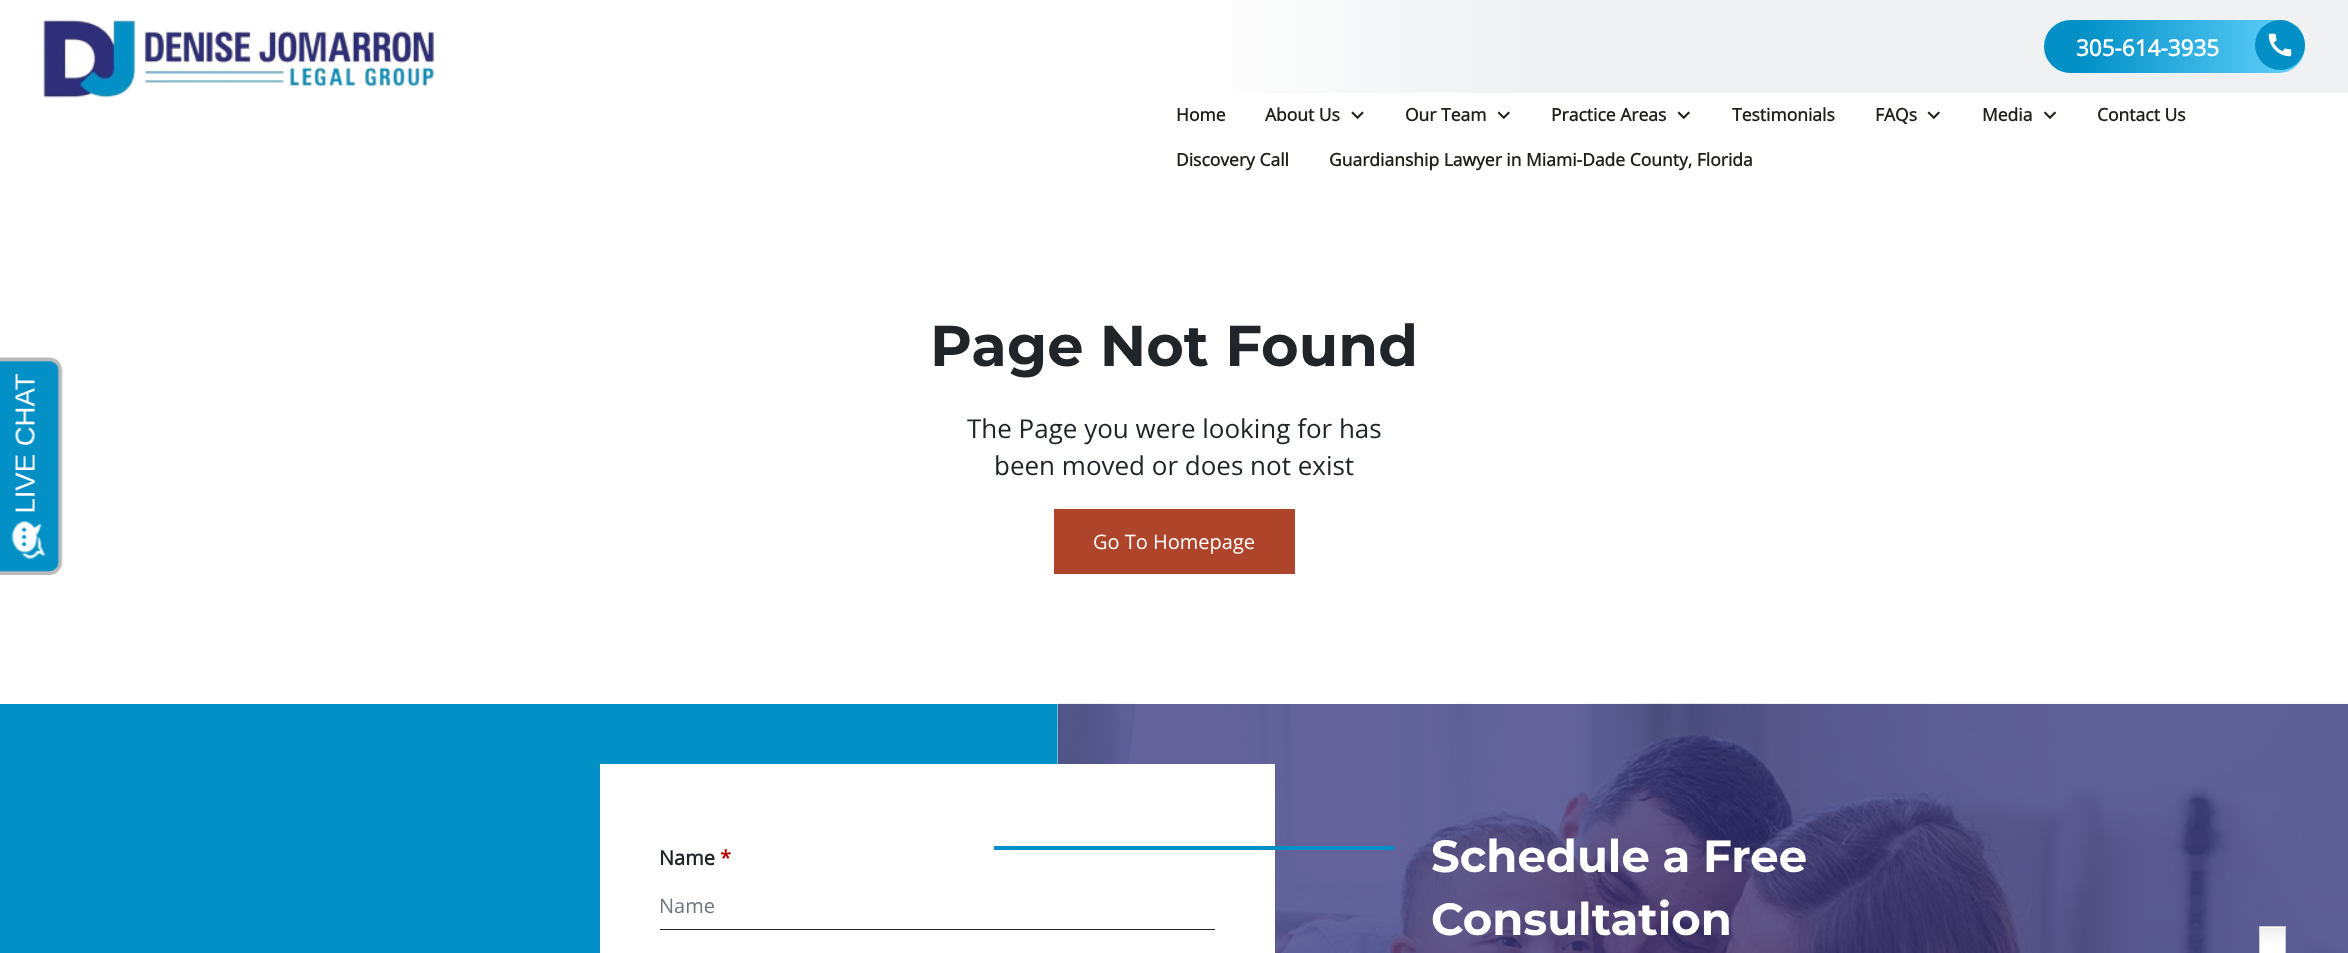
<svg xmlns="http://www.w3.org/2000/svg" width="2348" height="953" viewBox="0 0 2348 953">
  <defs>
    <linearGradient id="g1" gradientUnits="userSpaceOnUse" x1="1175" y1="46" x2="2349" y2="46"><stop offset="0" stop-color="rgb(255,255,255)"/><stop offset="0.3" stop-color="rgb(239,241,242)"/></linearGradient>
    <linearGradient id="g2" gradientUnits="userSpaceOnUse" x1="2044" y1="46" x2="2305" y2="46"><stop offset="0.14" stop-color="rgb(2,144,198)"/><stop offset="1" stop-color="rgb(100,211,253)"/></linearGradient>
    <linearGradient id="g3" gradientUnits="userSpaceOnUse" x1="2273" y1="928" x2="2273" y2="953"><stop offset="0" stop-color="rgb(239,239,239)"/><stop offset="0.7" stop-color="rgb(255,255,255)"/></linearGradient>
  </defs>
  <rect width="100%" height="100%" fill="rgb(255,255,255)"/>
  <image x="43" y="20" width="391" height="78" href="pic1.png"/>
  <rect x="1230" y="0" width="1118" height="93" fill="url(#g1)"/>
  <rect x="2044" y="20" width="261" height="53" rx="26.5" fill="url(#g2)"/>
  <text x="2076" y="56" font-family="Open Sans" font-size="22.5" font-weight="bold" fill="rgb(255,255,255)">305-614-3935</text>
  <circle cx="2280" cy="45" r="25" fill="rgb(2,144,198)"/>
  <image x="2268" y="33" width="24" height="24" href="pic2.png"/>
  <g font-family="Open Sans" font-size="17.5" font-weight="bold" fill="rgb(31,31,27)">
    <text x="1176" y="121">Home</text>
    <text x="1265" y="121">About Us</text>
  </g>
  <image x="1351" y="111" width="13" height="9" href="pic3.png"/>
  <text x="1405" y="121" font-family="Open Sans" font-size="17.5" font-weight="bold" fill="rgb(31,31,27)">Our Team</text>
  <image x="1497" y="111" width="13" height="9" href="pic4.png"/>
  <text x="1551" y="121" font-family="Open Sans" font-size="17.5" font-weight="bold" fill="rgb(31,31,27)">Practice Areas</text>
  <image x="1677" y="111" width="13" height="9" href="pic4.png"/>
  <g font-family="Open Sans" font-size="17.5" font-weight="bold" fill="rgb(31,31,27)">
    <text x="1732" y="121">Testimonials</text>
    <text x="1875" y="121">FAQs</text>
  </g>
  <image x="1927" y="111" width="13" height="9" href="pic4.png"/>
  <text x="1982" y="121" font-family="Open Sans" font-size="17.5" font-weight="bold" fill="rgb(31,31,27)">Media</text>
  <image x="2043" y="111" width="14" height="8" href="pic5.png"/>
  <g font-family="Open Sans" font-size="17.5" font-weight="bold" fill="rgb(31,31,27)">
    <text x="2097" y="121">Contact Us</text>
    <text x="1176" y="166">Discovery Call</text>
    <text x="1329" y="166">Guardianship Lawyer in Miami-Dade County, Florida</text>
  </g>
  <image x="0" y="357" width="63" height="218" href="pic6.png"/>
  <text x="930" y="366" font-family="Montserrat" font-size="57.5" font-weight="100" fill="rgb(33,37,41)">Page Not Found</text>
  <g font-family="Open Sans" font-size="26" fill="rgb(33,37,41)">
    <text x="967" y="438">The Page you were looking for has</text>
    <text x="994" y="475">been moved or does not exist</text>
  </g>
  <rect x="1054" y="509" width="241" height="65" fill="rgb(174,69,42)"/>
  <text x="1093" y="549" font-family="Open Sans" font-size="20" fill="rgb(255,255,255)">Go To Homepage</text>
  <rect x="0" y="704" width="1058" height="249" fill="rgb(2,144,198)"/>
  <image x="1057" y="703" width="1291" height="250" href="pic7.png"/>
  <rect x="600" y="764" width="675" height="189" fill="rgb(255,255,255)"/>
  <text x="659" y="865" font-family="Open Sans" font-size="20" font-weight="bold" fill="rgb(33,37,41)">Name</text>
  <text x="720" y="865" font-family="Open Sans" font-size="20" font-weight="bold" fill="rgb(183,0,0)">*</text>
  <rect x="660" y="929" width="555" height="1" fill="rgb(33,37,41)"/>
  <text x="659" y="913" font-family="Open Sans" font-size="20" fill="rgb(108,117,125)">Name</text>
  <rect x="994" y="846" width="400" height="4" fill="rgb(2,144,198)"/>
  <g font-family="Montserrat" font-size="45" font-weight="100" fill="rgb(255,255,255)">
    <text>
      <tspan x="1431" y="872">Schedule a Free</tspan>
      <tspan x="1431" y="935">Consultation</tspan>
    </text>
  </g>
  <rect x="2260" y="927" width="25" height="1" fill="rgb(255,255,255)"/>
  <rect x="2260" y="928" width="25" height="25" fill="url(#g3)"/>
  <rect x="2259.5" y="926.5" width="26" height="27" fill="none" stroke="rgb(204,204,204)"/>
</svg>
